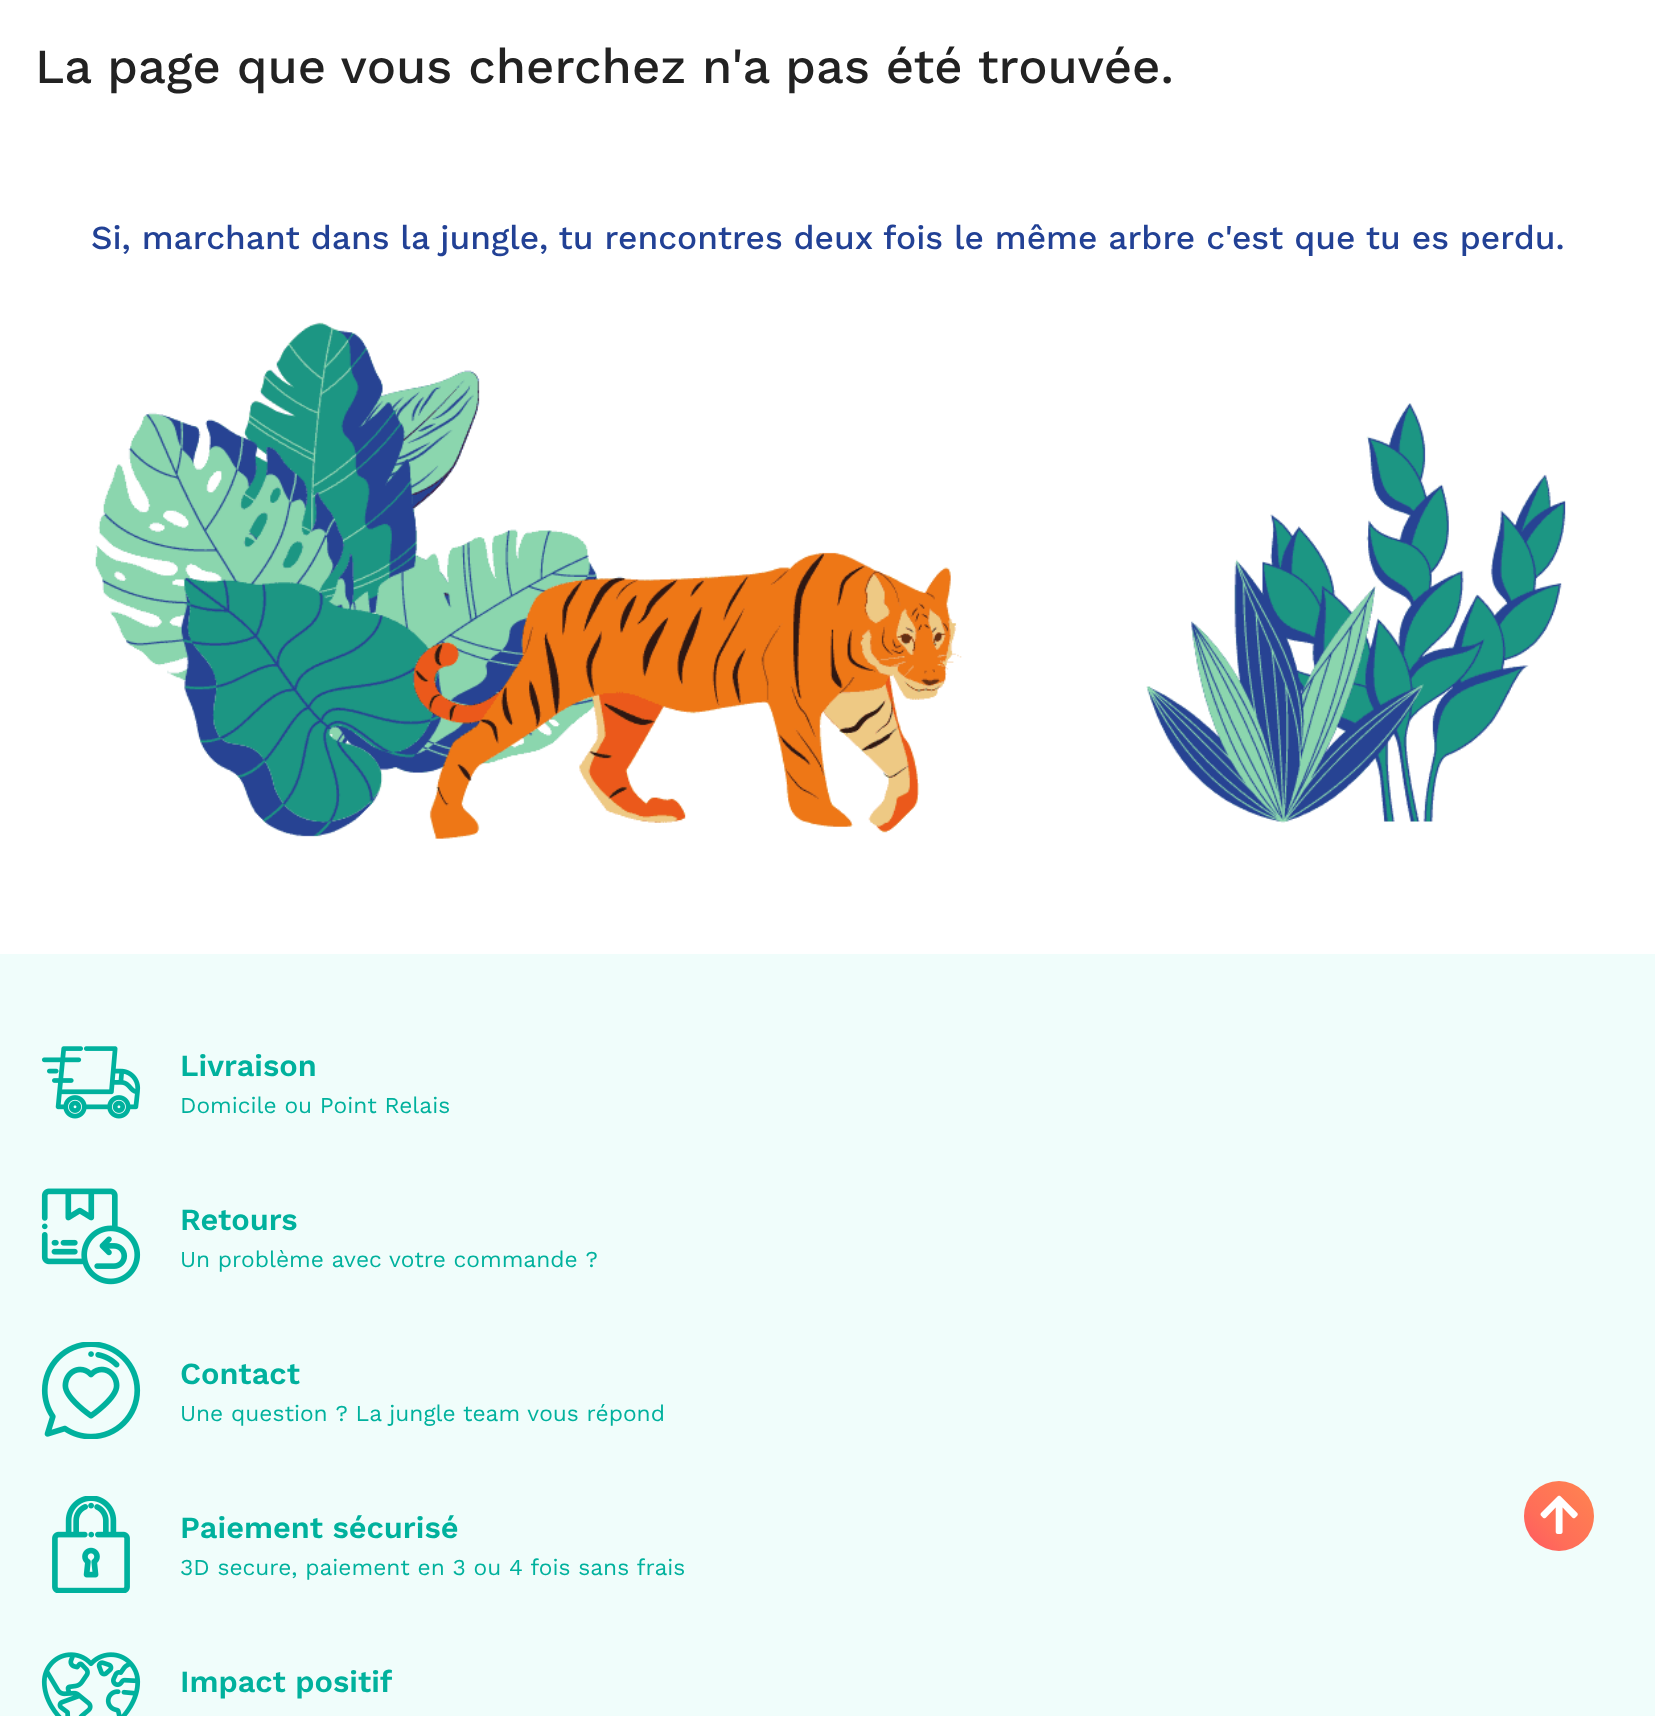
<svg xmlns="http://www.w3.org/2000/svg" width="1655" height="1716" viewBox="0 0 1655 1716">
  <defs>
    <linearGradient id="g1" gradientUnits="userSpaceOnUse" x1="1524" y1="1551" x2="1594" y2="1481"><stop offset="0" stop-color="rgb(255,88,98)"/><stop offset="0.33" stop-color="rgb(255,109,89)"/><stop offset="0.67" stop-color="rgb(255,121,84)"/><stop offset="1" stop-color="rgb(255,133,81)"/></linearGradient>
  </defs>
  <rect width="100%" height="100%" fill="rgb(255,255,255)"/>
  <text x="35" y="83" font-family="Work Sans" font-size="49" font-weight="500" fill="rgb(34,34,34)">La page que vous cherchez n'a pas été trouvée.</text>
  <text x="91" y="249" font-family="Work Sans" font-size="33.6" font-weight="500" fill="rgb(34,65,149)">Si, marchant dans la jungle, tu rencontres deux fois le même arbre c'est que tu es perdu.</text>
  <image x="95" y="322" width="1471" height="517" href="pic1.png"/>
  <rect x="0" y="954" width="1655" height="762" fill="rgb(240,253,251)"/>
  <image x="41" y="1046" width="100" height="73" href="pic2.png"/>
  <text x="180" y="1076" font-family="Work Sans" font-size="30.75" font-weight="600" fill="rgb(0,177,157)">Livraison</text>
  <text x="180" y="1113" font-family="Work Sans" font-size="22.75" fill="rgb(0,177,157)">Domicile ou Point Relais</text>
  <image x="41" y="1188" width="100" height="97" href="pic3.png"/>
  <text x="180" y="1230" font-family="Work Sans" font-size="30.75" font-weight="600" fill="rgb(0,177,157)">Retours</text>
  <text x="180" y="1267" font-family="Work Sans" font-size="22.75" fill="rgb(0,177,157)">Un problème avec votre commande ?</text>
  <image x="41" y="1342" width="100" height="97" href="pic4.png"/>
  <text x="180" y="1384" font-family="Work Sans" font-size="30.75" font-weight="600" fill="rgb(0,177,157)">Contact</text>
  <text x="180" y="1421" font-family="Work Sans" font-size="22.75" fill="rgb(0,177,157)">Une question ? La jungle team vous répond</text>
  <image x="52" y="1496" width="78" height="97" href="pic5.png"/>
  <text x="180" y="1538" font-family="Work Sans" font-size="30.75" font-weight="600" fill="rgb(0,177,157)">Paiement sécurisé</text>
  <text x="180" y="1575" font-family="Work Sans" font-size="22.75" fill="rgb(0,177,157)">3D secure, paiement en 3 ou 4 fois sans frais</text>
  <image x="41" y="1652" width="100" height="64" href="pic6.png"/>
  <text x="180" y="1692" font-family="Work Sans" font-size="30.75" font-weight="600" fill="rgb(0,177,157)">Impact positif</text>
  <circle cx="1559" cy="1516" r="35" fill="url(#g1)"/>
  <image x="1540" y="1495" width="38" height="39" href="pic7.png"/>
</svg>
